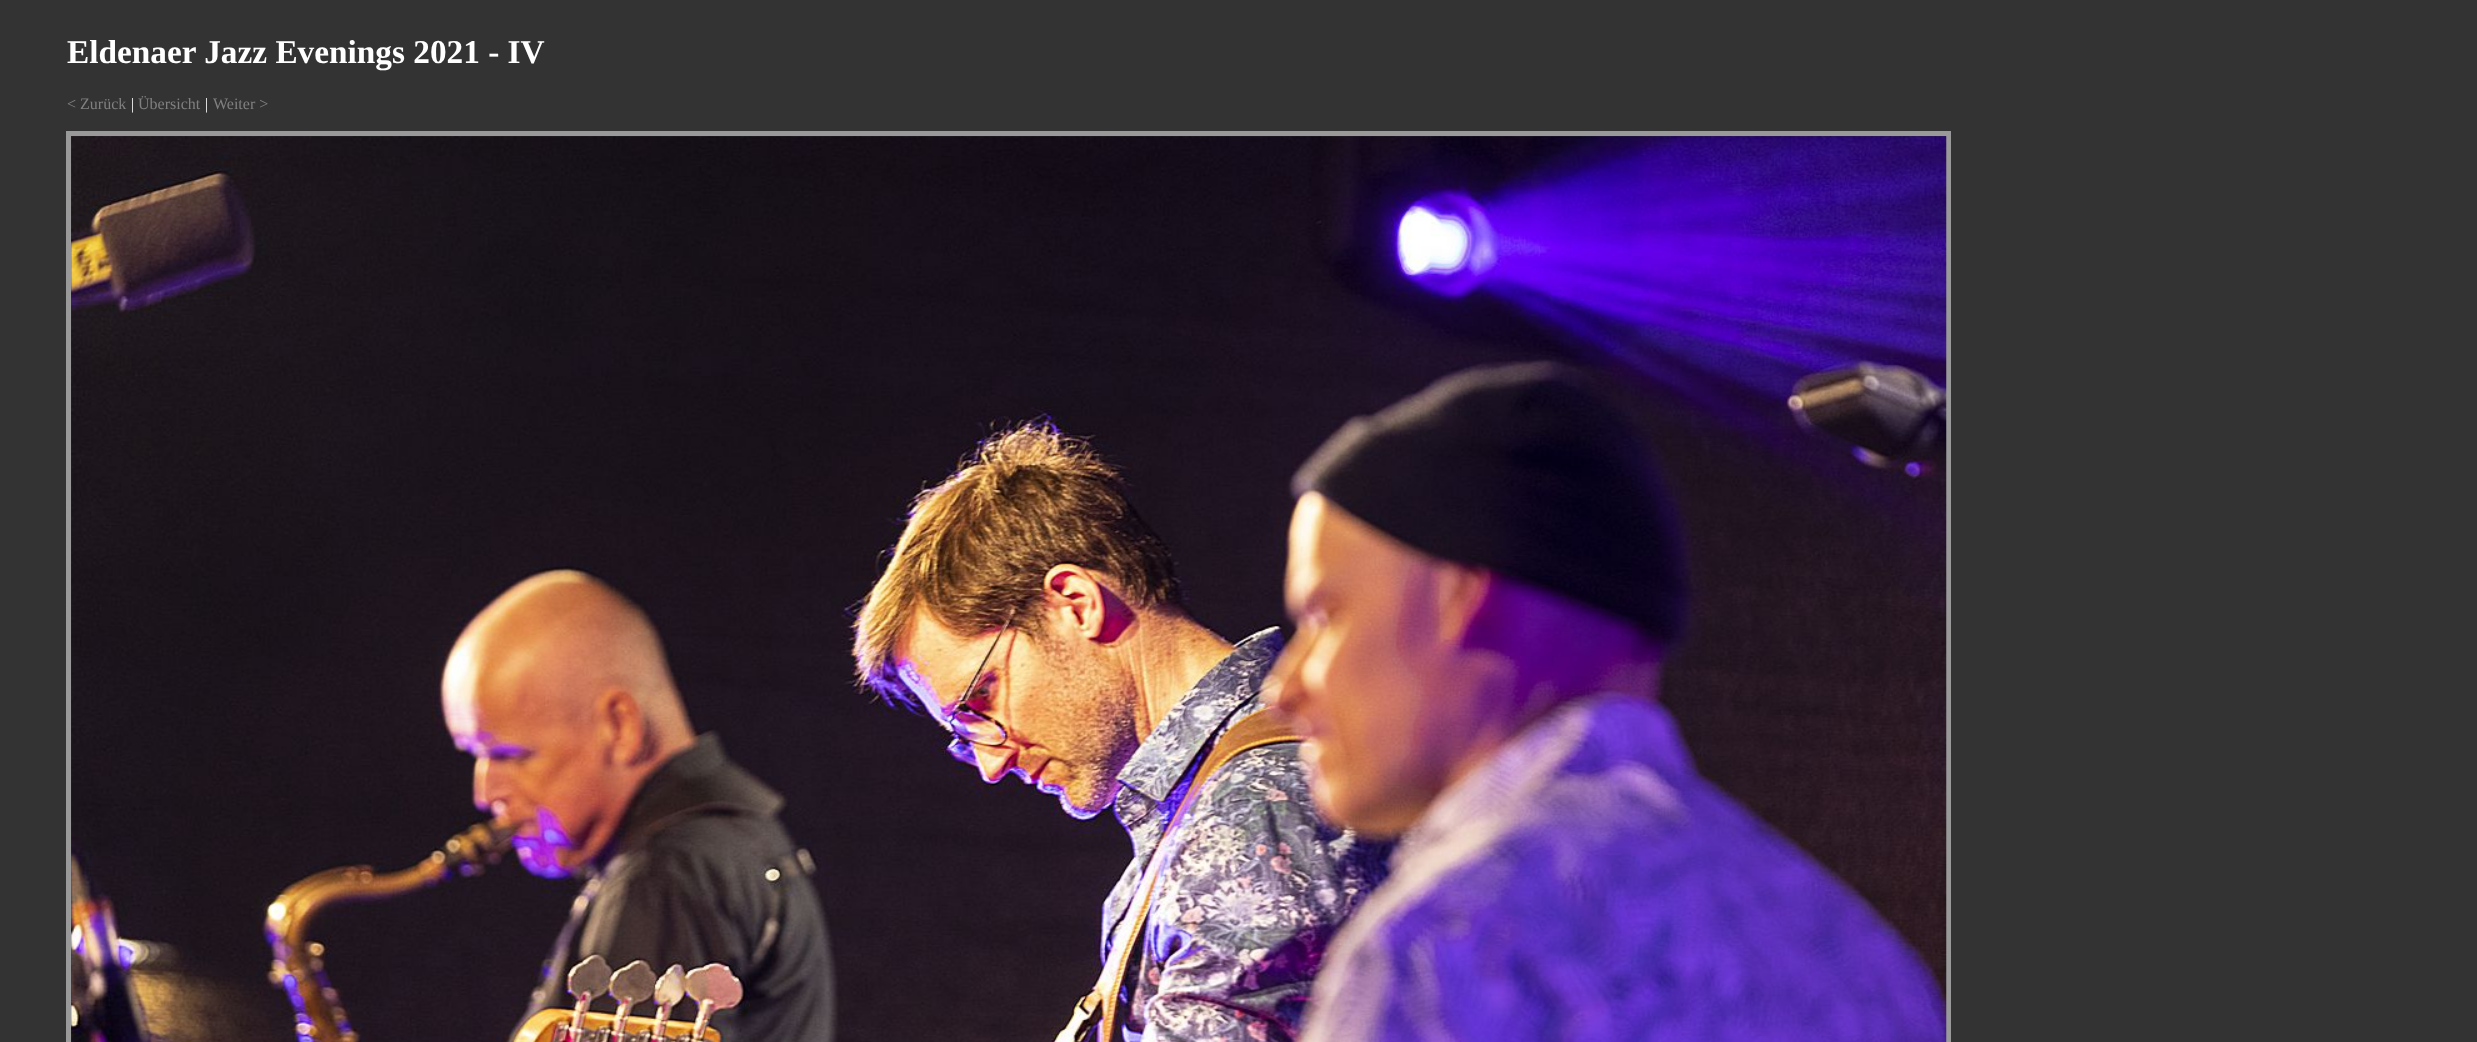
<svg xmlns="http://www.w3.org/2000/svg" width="2477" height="1042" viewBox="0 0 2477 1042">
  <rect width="100%" height="100%" fill="rgb(51,51,51)"/>
  <text x="67" y="63" font-family="Liberation Serif" font-size="33.3" font-weight="bold" fill="rgb(255,255,255)">Eldenaer Jazz Evenings 2021 - IV</text>
  <text x="67" y="109" font-family="Liberation Serif" font-size="16" fill="rgb(128,128,128)">&lt; Zurück</text>
  <text x="131" y="109" font-family="Liberation Serif" font-size="16" fill="rgb(255,255,255)">|</text>
  <text x="138" y="109" font-family="Liberation Serif" font-size="16" fill="rgb(128,128,128)">Übersicht</text>
  <text x="205" y="109" font-family="Liberation Serif" font-size="16" fill="rgb(255,255,255)">|</text>
  <text x="213" y="109" font-family="Liberation Serif" font-size="16" fill="rgb(128,128,128)">Weiter &gt;</text>
  <rect x="68.5" y="133.5" width="1880" height="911" fill="none" stroke="rgb(153,153,153)" stroke-width="5"/>
  <image x="71" y="136" width="1876" height="906" href="pic1.png"/>
</svg>
